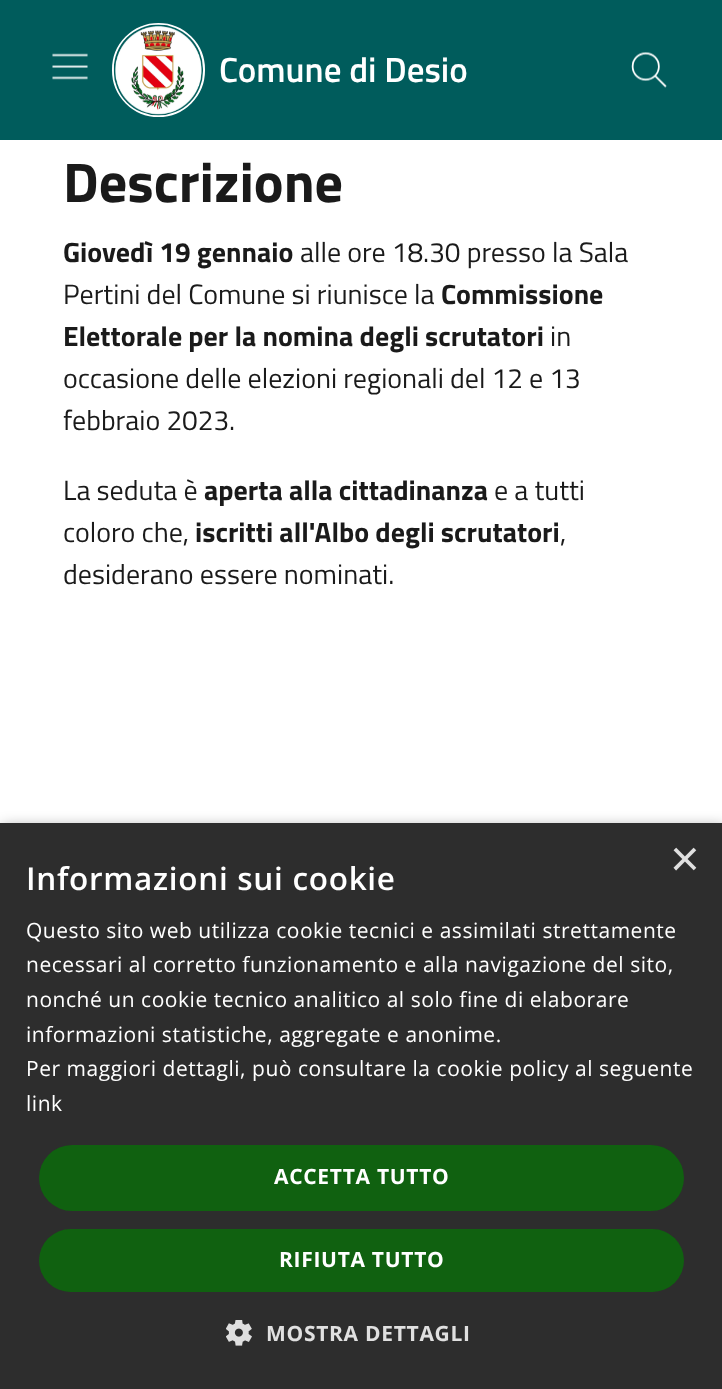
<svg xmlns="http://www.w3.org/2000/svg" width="722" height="1389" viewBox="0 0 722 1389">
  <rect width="100%" height="100%" fill="rgb(255,255,255)"/>
  <rect x="0" y="0" width="722" height="140" fill="rgb(0,92,92)"/>
  <image x="52" y="53" width="36" height="27" href="pic1.png"/>
  <rect x="113" y="24" width="91" height="92" rx="45.5" fill="rgb(255,255,255)" stroke="rgb(255,255,255)" stroke-width="2"/>
  <image x="113" y="24" width="90" height="92" href="pic2.png"/>
  <text x="219" y="82" font-family="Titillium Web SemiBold" font-size="35" font-weight="600" fill="rgb(255,255,255)">Comune di Desio</text>
  <image x="631" y="52" width="36" height="36" href="pic3.png"/>
  <text x="63" y="202" font-family="Titillium Web" font-size="56" font-weight="bold" fill="rgb(26,26,26)">Descrizione</text>
  <text x="63" y="262" font-family="Titillium Web" font-size="28" font-weight="bold" fill="rgb(26,26,26)">Giovedì 19 gennaio</text>
  <g font-family="Titillium Web" font-size="28" fill="rgb(26,26,26)">
    <text x="300" y="262">alle ore 18.30 presso la Sala</text>
    <text x="63" y="304">Pertini del Comune si riunisce la</text>
  </g>
  <g font-family="Titillium Web" font-size="28" font-weight="bold" fill="rgb(26,26,26)">
    <text x="441" y="304">Commissione</text>
    <text x="63" y="346">Elettorale per la nomina degli scrutatori</text>
  </g>
  <g font-family="Titillium Web" font-size="28" fill="rgb(26,26,26)">
    <text x="550" y="346">in</text>
    <text>
      <tspan x="63" y="388">occasione delle elezioni regionali del 12 e 13</tspan>
      <tspan x="63" y="430">febbraio 2023.</tspan>
    </text>
    <text x="63" y="500">La seduta è</text>
  </g>
  <text x="204" y="500" font-family="Titillium Web" font-size="28" font-weight="bold" fill="rgb(26,26,26)">aperta alla cittadinanza</text>
  <g font-family="Titillium Web" font-size="28" fill="rgb(26,26,26)">
    <text x="494" y="500">e a tutti</text>
    <text x="63" y="542">coloro che,</text>
  </g>
  <text x="195" y="542" font-family="Titillium Web" font-size="28" font-weight="bold" fill="rgb(26,26,26)">iscritti all'Albo degli scrutatori</text>
  <g font-family="Titillium Web" font-size="28" fill="rgb(26,26,26)">
    <text x="560" y="542">,</text>
    <text x="63" y="584">desiderano essere nominati.</text>
  </g>
  <rect x="2" y="826" width="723" height="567" fill="rgba(0,0,0,0.35)" filter="blur(7px)"/>
  <rect x="0" y="823" width="722" height="566" fill="rgb(45,45,45)"/>
  <text x="670" y="876" font-family="Liberation Sans" font-size="51" fill="rgb(224,224,224)">×</text>
  <text x="26" y="890" font-family="Open Sans" font-size="31.5" font-weight="600" letter-spacing="0.7" fill="rgb(255,255,255)">Informazioni sui cookie</text>
  <g font-family="Open Sans" font-size="21" letter-spacing="0.53" fill="rgb(255,255,255)">
    <text>
      <tspan x="26" y="938">Questo sito web utilizza cookie tecnici e assimilati strettamente</tspan>
      <tspan x="26" y="972">necessari al corretto funzionamento e alla navigazione del sito,</tspan>
      <tspan x="26" y="1007">nonché un cookie tecnico analitico al solo fine di elaborare</tspan>
      <tspan x="26" y="1042">informazioni statistiche, aggregate e anonime.</tspan>
      <tspan x="26" y="1076">Per maggiori dettagli, può consultare la cookie policy al seguente</tspan>
      <tspan x="26" y="1111">link</tspan>
    </text>
  </g>
  <rect x="39" y="1145" width="645" height="66" rx="33" fill="rgb(16,97,16)"/>
  <text x="274" y="1184" font-family="Open Sans" font-size="21" font-weight="bold" letter-spacing="0.7" fill="rgb(255,255,255)">ACCETTA TUTTO</text>
  <rect x="39" y="1229" width="645" height="63" rx="31.5" fill="rgb(16,97,16)"/>
  <text x="279" y="1267" font-family="Open Sans" font-size="21" font-weight="bold" letter-spacing="0.7" fill="rgb(255,255,255)">RIFIUTA TUTTO</text>
  <image x="226" y="1320" width="26" height="26" href="pic4.png"/>
  <text x="266" y="1341" font-family="Open Sans" font-size="21" font-weight="bold" letter-spacing="0.7" fill="rgb(224,224,224)">MOSTRA DETTAGLI</text>
</svg>
